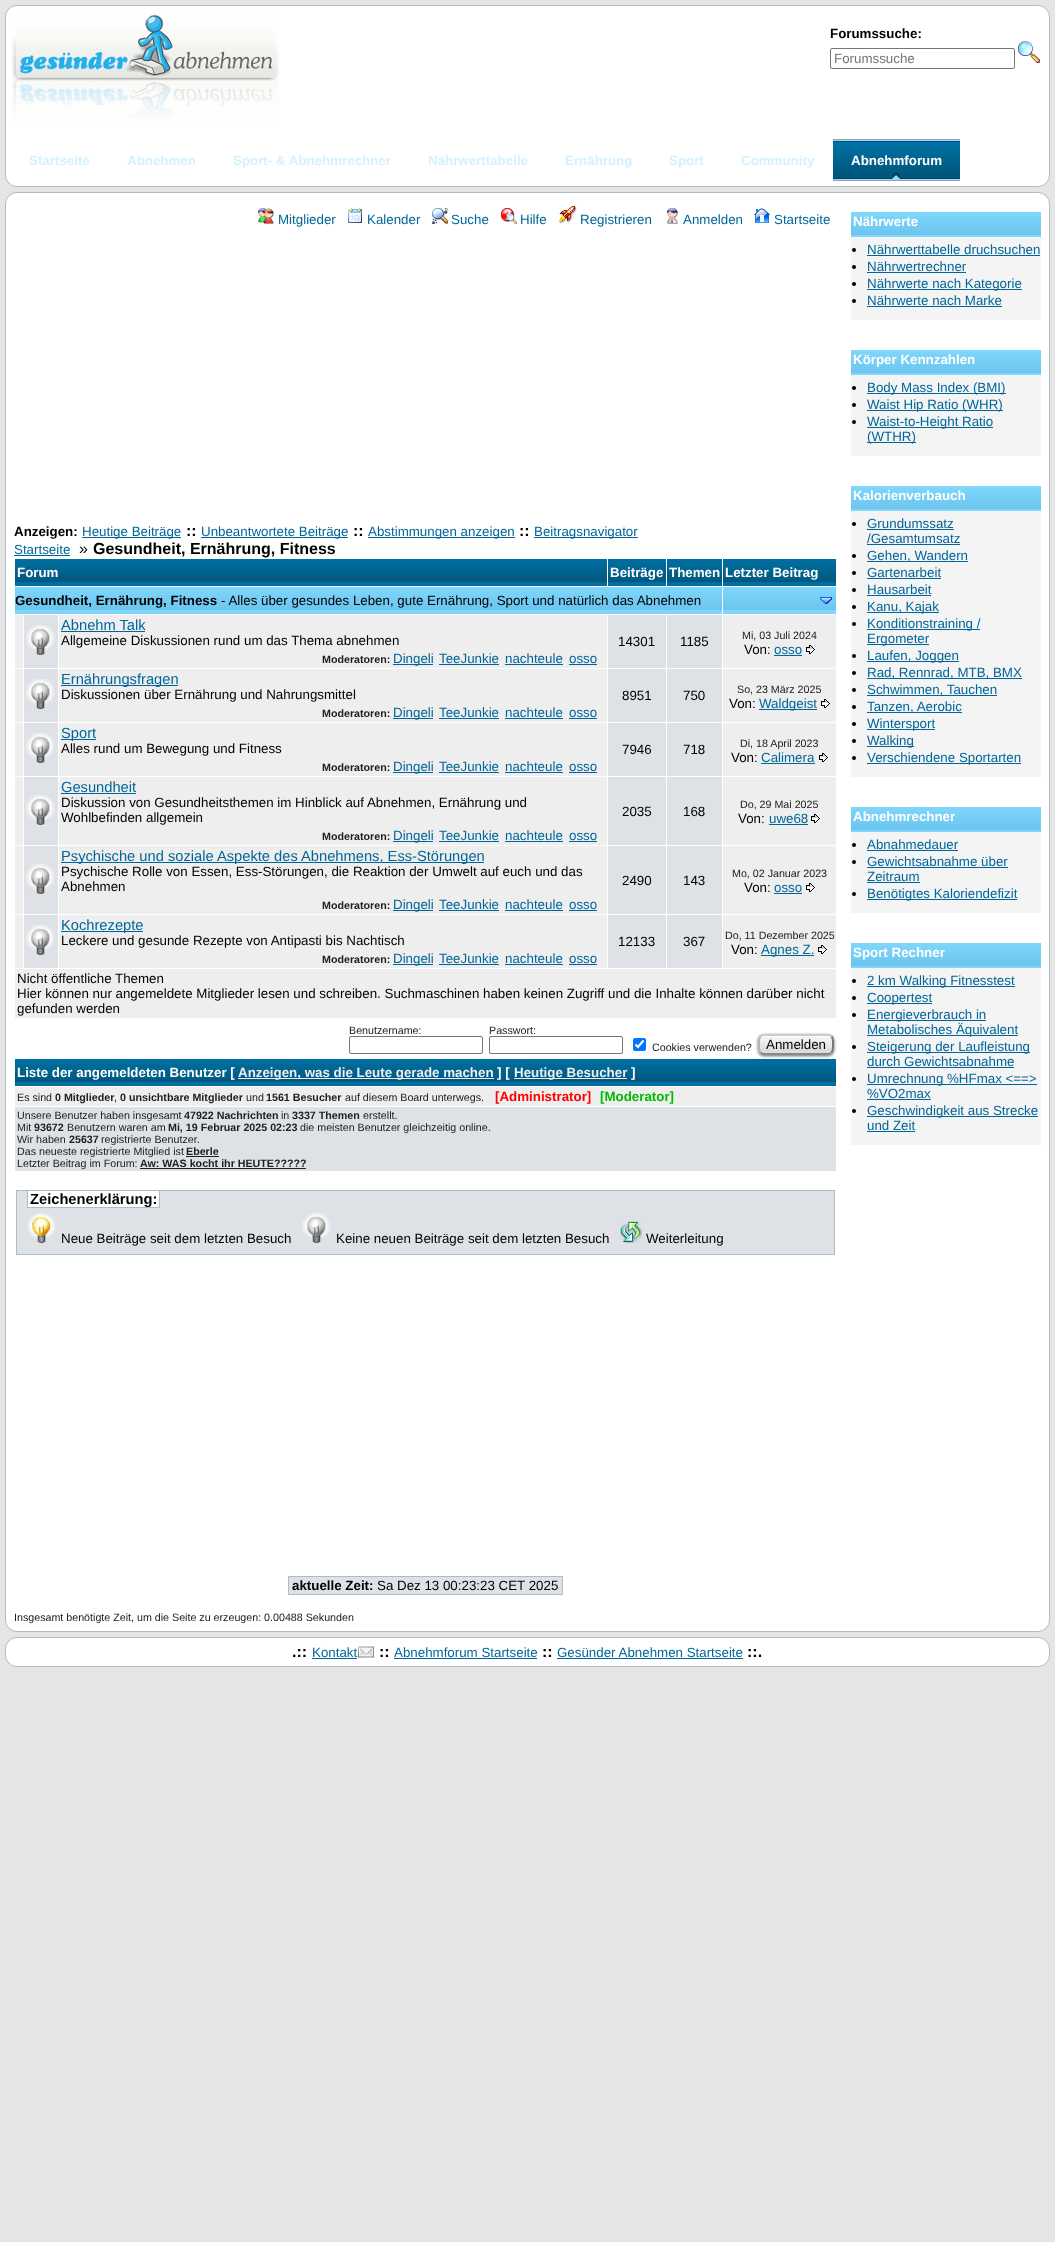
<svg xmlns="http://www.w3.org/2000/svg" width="1055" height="2242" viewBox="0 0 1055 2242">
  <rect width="100%" height="100%" fill="rgb(229,229,229)"/>
  <rect x="5.5" y="5.5" width="1044" height="181" rx="11.5" fill="rgb(255,255,255)" stroke="rgb(174,189,196)"/>
  <image x="11" y="12" width="269" height="109" href="pic1.png"/>
  <text x="830" y="38" font-family="Liberation Sans" font-size="13.33" font-weight="bold" fill="rgb(0,0,0)">Forumssuche:</text>
  <rect x="830.5" y="48.5" width="184" height="20" rx="1.5" fill="none" stroke="rgb(118,118,118)"/>
  <text x="834" y="63" font-family="Liberation Sans" font-size="13.33" fill="rgb(117,117,117)">Forumssuche</text>
  <image x="1018" y="41" width="22" height="22" href="pic2.png"/>
  <g font-family="Liberation Sans" font-size="13.33" font-weight="bold" fill="rgb(213,241,255)">
    <text x="29" y="165">Startseite</text>
    <text x="127" y="165">Abnehmen</text>
    <text x="233" y="165">Sport- &amp; Abnehmrechner</text>
    <text x="428" y="165">Nährwerttabelle</text>
    <text x="565" y="165">Ernährung</text>
    <text x="669" y="165">Sport</text>
    <text x="741" y="165">Community</text>
  </g>
  <image x="833" y="139" width="127" height="42" href="pic3.png"/>
  <text x="851" y="165" font-family="Liberation Sans" font-size="13.33" font-weight="bold" fill="rgb(255,255,255)">Abnehmforum</text>
  <rect x="5.5" y="192.5" width="1044" height="1439" rx="11.5" fill="rgb(255,255,255)" stroke="rgb(174,189,196)"/>
  <image x="258" y="208" width="16" height="16" href="pic4.png"/>
  <text x="278" y="224" font-family="Liberation Sans" font-size="13.33" fill="rgb(0,102,153)">Mitglieder</text>
  <image x="348" y="208" width="14" height="15" href="pic5.png"/>
  <text x="367" y="224" font-family="Liberation Sans" font-size="13.33" fill="rgb(0,102,153)">Kalender</text>
  <image x="432" y="208" width="16" height="16" href="pic6.png"/>
  <text x="451" y="224" font-family="Liberation Sans" font-size="13.33" fill="rgb(0,102,153)">Suche</text>
  <image x="501" y="208" width="16" height="16" href="pic7.png"/>
  <text x="520" y="224" font-family="Liberation Sans" font-size="13.33" fill="rgb(0,102,153)">Hilfe</text>
  <image x="559" y="206" width="18" height="18" href="pic8.png"/>
  <text x="580" y="224" font-family="Liberation Sans" font-size="13.33" fill="rgb(0,102,153)">Registrieren</text>
  <image x="667" y="208" width="12" height="16" href="pic9.png"/>
  <text x="683" y="224" font-family="Liberation Sans" font-size="13.33" fill="rgb(0,102,153)">Anmelden</text>
  <image x="754" y="208" width="16" height="15" href="pic10.png"/>
  <text x="774" y="224" font-family="Liberation Sans" font-size="13.33" fill="rgb(0,102,153)">Startseite</text>
  <text x="14" y="536" font-family="Liberation Sans" font-size="13.33" font-weight="bold" fill="rgb(0,0,0)">Anzeigen:</text>
  <rect x="82" y="537" width="99" height="1" fill="rgb(0,102,153)"/>
  <text x="82" y="536" font-family="Liberation Sans" font-size="13.33" fill="rgb(0,102,153)">Heutige Beiträge</text>
  <text x="186" y="536" font-family="Liberation Sans" font-size="16" font-weight="bold" fill="rgb(0,0,0)">::</text>
  <rect x="201" y="537" width="147" height="1" fill="rgb(0,102,153)"/>
  <text x="201" y="536" font-family="Liberation Sans" font-size="13.33" fill="rgb(0,102,153)">Unbeantwortete Beiträge</text>
  <text x="353" y="536" font-family="Liberation Sans" font-size="16" font-weight="bold" fill="rgb(0,0,0)">::</text>
  <rect x="368" y="537" width="147" height="1" fill="rgb(0,102,153)"/>
  <text x="368" y="536" font-family="Liberation Sans" font-size="13.33" fill="rgb(0,102,153)">Abstimmungen anzeigen</text>
  <text x="519" y="536" font-family="Liberation Sans" font-size="16" font-weight="bold" fill="rgb(0,0,0)">::</text>
  <rect x="534" y="537" width="104" height="1" fill="rgb(0,102,153)"/>
  <g font-family="Liberation Sans" font-size="13.33" fill="rgb(0,102,153)">
    <text x="534" y="536">Beitragsnavigator</text>
    <text x="14" y="554">Startseite</text>
  </g>
  <rect x="14" y="555" width="56" height="1" fill="rgb(0,102,153)"/>
  <text x="79" y="554" font-family="Liberation Sans" font-size="16" fill="rgb(0,0,0)">»</text>
  <text x="93" y="554" font-family="Liberation Sans" font-size="16" font-weight="bold" fill="rgb(0,0,0)">Gesundheit, Ernährung, Fitness</text>
  <image x="15" y="559" width="592" height="27" href="pic11.png"/>
  <text x="17" y="577" font-family="Liberation Sans" font-size="13.33" font-weight="bold" fill="rgb(255,255,255)">Forum</text>
  <image x="608" y="559" width="58" height="27" href="pic12.png"/>
  <text x="610" y="577" font-family="Liberation Sans" font-size="13.33" font-weight="bold" fill="rgb(255,255,255)">Beiträge</text>
  <image x="667" y="559" width="55" height="27" href="pic13.png"/>
  <text x="669" y="577" font-family="Liberation Sans" font-size="13.33" font-weight="bold" fill="rgb(255,255,255)">Themen</text>
  <image x="723" y="559" width="113" height="27" href="pic14.png"/>
  <text x="725" y="577" font-family="Liberation Sans" font-size="13.33" font-weight="bold" fill="rgb(255,255,255)">Letzter Beitrag</text>
  <image x="15" y="587" width="707" height="27" href="pic15.png"/>
  <text x="15" y="605" font-family="Liberation Sans" font-size="13.33" font-weight="bold" fill="rgb(0,0,0)">Gesundheit, Ernährung, Fitness</text>
  <text x="221" y="605" font-family="Liberation Sans" font-size="13.33" fill="rgb(0,0,0)">- Alles über gesundes Leben, gute Ernährung, Sport und natürlich das Abnehmen</text>
  <image x="723" y="587" width="113" height="27" href="pic16.png"/>
  <image x="820" y="597" width="12" height="7" href="pic17.png"/>
  <rect x="15" y="615" width="8" height="53" fill="rgb(238,238,238)"/>
  <rect x="24" y="615" width="34" height="53" fill="rgb(222,226,230)"/>
  <image x="26" y="625" width="29" height="30" href="pic18.png"/>
  <rect x="59" y="615" width="548" height="53" fill="rgb(238,238,238)"/>
  <text x="61" y="630" font-family="Liberation Sans" font-size="14.7" fill="rgb(0,102,153)">Abnehm Talk</text>
  <rect x="61" y="631" width="84" height="1" fill="rgb(0,102,153)"/>
  <text x="61" y="645" font-family="Liberation Sans" font-size="13.33" fill="rgb(0,0,0)">Allgemeine Diskussionen rund um das Thema abnehmen</text>
  <text x="322" y="663" font-family="Liberation Sans" font-size="10.7" font-weight="bold" fill="rgb(32,32,32)">Moderatoren:</text>
  <rect x="393" y="664" width="40" height="1" fill="rgb(0,102,153)"/>
  <g font-family="Liberation Sans" font-size="13.33" fill="rgb(0,102,153)">
    <text x="393" y="663">Dingeli</text>
    <text x="439" y="663">TeeJunkie</text>
  </g>
  <rect x="439" y="664" width="60" height="1" fill="rgb(0,102,153)"/>
  <text x="505" y="663" font-family="Liberation Sans" font-size="13.33" fill="rgb(0,102,153)">nachteule</text>
  <rect x="505" y="664" width="58" height="1" fill="rgb(0,102,153)"/>
  <text x="569" y="663" font-family="Liberation Sans" font-size="13.33" fill="rgb(0,102,153)">osso</text>
  <rect x="569" y="664" width="28" height="1" fill="rgb(0,102,153)"/>
  <rect x="608" y="615" width="58" height="53" fill="rgb(222,226,230)"/>
  <text x="618" y="646" font-family="Liberation Sans" font-size="13.33" fill="rgb(0,0,0)">14301</text>
  <rect x="667" y="615" width="55" height="53" fill="rgb(222,226,230)"/>
  <text x="680" y="646" font-family="Liberation Sans" font-size="13.33" fill="rgb(0,0,0)">1185</text>
  <rect x="723" y="615" width="113" height="53" fill="rgb(238,238,238)"/>
  <text x="742" y="639" font-family="Liberation Sans" font-size="10.7" fill="rgb(32,32,32)">Mi, 03 Juli 2024</text>
  <text x="744" y="654" font-family="Liberation Sans" font-size="13.33" fill="rgb(0,0,0)">Von:</text>
  <text x="774" y="654" font-family="Liberation Sans" font-size="13.33" fill="rgb(0,102,153)">osso</text>
  <rect x="774" y="655" width="28" height="1" fill="rgb(0,102,153)"/>
  <image x="806" y="645" width="9" height="9" href="pic19.png"/>
  <rect x="15" y="669" width="8" height="53" fill="rgb(238,238,238)"/>
  <rect x="24" y="669" width="34" height="53" fill="rgb(222,226,230)"/>
  <image x="26" y="679" width="29" height="30" href="pic18.png"/>
  <rect x="59" y="669" width="548" height="53" fill="rgb(238,238,238)"/>
  <rect x="61" y="685" width="117" height="1" fill="rgb(0,102,153)"/>
  <text x="61" y="684" font-family="Liberation Sans" font-size="14.7" fill="rgb(0,102,153)">Ernährungsfragen</text>
  <text x="61" y="699" font-family="Liberation Sans" font-size="13.33" fill="rgb(0,0,0)">Diskussionen über Ernährung und Nahrungsmittel</text>
  <text x="322" y="717" font-family="Liberation Sans" font-size="10.7" font-weight="bold" fill="rgb(32,32,32)">Moderatoren:</text>
  <rect x="393" y="718" width="40" height="1" fill="rgb(0,102,153)"/>
  <g font-family="Liberation Sans" font-size="13.33" fill="rgb(0,102,153)">
    <text x="393" y="717">Dingeli</text>
    <text x="439" y="717">TeeJunkie</text>
  </g>
  <rect x="439" y="718" width="60" height="1" fill="rgb(0,102,153)"/>
  <text x="505" y="717" font-family="Liberation Sans" font-size="13.33" fill="rgb(0,102,153)">nachteule</text>
  <rect x="505" y="718" width="58" height="1" fill="rgb(0,102,153)"/>
  <text x="569" y="717" font-family="Liberation Sans" font-size="13.33" fill="rgb(0,102,153)">osso</text>
  <rect x="569" y="718" width="28" height="1" fill="rgb(0,102,153)"/>
  <rect x="608" y="669" width="58" height="53" fill="rgb(222,226,230)"/>
  <text x="622" y="700" font-family="Liberation Sans" font-size="13.33" fill="rgb(0,0,0)">8951</text>
  <rect x="667" y="669" width="55" height="53" fill="rgb(222,226,230)"/>
  <text x="683" y="700" font-family="Liberation Sans" font-size="13.33" fill="rgb(0,0,0)">750</text>
  <rect x="723" y="669" width="113" height="53" fill="rgb(238,238,238)"/>
  <text x="737" y="693" font-family="Liberation Sans" font-size="10.7" fill="rgb(32,32,32)">So, 23 März 2025</text>
  <text x="729" y="708" font-family="Liberation Sans" font-size="13.33" fill="rgb(0,0,0)">Von:</text>
  <rect x="759" y="709" width="58" height="1" fill="rgb(0,102,153)"/>
  <text x="759" y="708" font-family="Liberation Sans" font-size="13.33" fill="rgb(0,102,153)">Waldgeist</text>
  <image x="821" y="699" width="9" height="9" href="pic19.png"/>
  <rect x="15" y="723" width="8" height="53" fill="rgb(238,238,238)"/>
  <rect x="24" y="723" width="34" height="53" fill="rgb(222,226,230)"/>
  <image x="26" y="733" width="29" height="30" href="pic18.png"/>
  <rect x="59" y="723" width="548" height="53" fill="rgb(238,238,238)"/>
  <rect x="61" y="739" width="35" height="1" fill="rgb(0,102,153)"/>
  <text x="61" y="738" font-family="Liberation Sans" font-size="14.7" fill="rgb(0,102,153)">Sport</text>
  <text x="61" y="753" font-family="Liberation Sans" font-size="13.33" fill="rgb(0,0,0)">Alles rund um Bewegung und Fitness</text>
  <text x="322" y="771" font-family="Liberation Sans" font-size="10.7" font-weight="bold" fill="rgb(32,32,32)">Moderatoren:</text>
  <rect x="393" y="772" width="40" height="1" fill="rgb(0,102,153)"/>
  <g font-family="Liberation Sans" font-size="13.33" fill="rgb(0,102,153)">
    <text x="393" y="771">Dingeli</text>
    <text x="439" y="771">TeeJunkie</text>
  </g>
  <rect x="439" y="772" width="60" height="1" fill="rgb(0,102,153)"/>
  <text x="505" y="771" font-family="Liberation Sans" font-size="13.33" fill="rgb(0,102,153)">nachteule</text>
  <rect x="505" y="772" width="58" height="1" fill="rgb(0,102,153)"/>
  <text x="569" y="771" font-family="Liberation Sans" font-size="13.33" fill="rgb(0,102,153)">osso</text>
  <rect x="569" y="772" width="28" height="1" fill="rgb(0,102,153)"/>
  <rect x="608" y="723" width="58" height="53" fill="rgb(222,226,230)"/>
  <text x="622" y="754" font-family="Liberation Sans" font-size="13.33" fill="rgb(0,0,0)">7946</text>
  <rect x="667" y="723" width="55" height="53" fill="rgb(222,226,230)"/>
  <text x="683" y="754" font-family="Liberation Sans" font-size="13.33" fill="rgb(0,0,0)">718</text>
  <rect x="723" y="723" width="113" height="53" fill="rgb(238,238,238)"/>
  <text x="740" y="747" font-family="Liberation Sans" font-size="10.7" fill="rgb(32,32,32)">Di, 18 April 2023</text>
  <text x="731" y="762" font-family="Liberation Sans" font-size="13.33" fill="rgb(0,0,0)">Von:</text>
  <text x="761" y="762" font-family="Liberation Sans" font-size="13.33" fill="rgb(0,102,153)">Calimera</text>
  <rect x="761" y="763" width="54" height="1" fill="rgb(0,102,153)"/>
  <image x="819" y="753" width="9" height="9" href="pic19.png"/>
  <rect x="15" y="777" width="8" height="68" fill="rgb(238,238,238)"/>
  <rect x="24" y="777" width="34" height="68" fill="rgb(222,226,230)"/>
  <image x="26" y="795" width="29" height="30" href="pic18.png"/>
  <rect x="59" y="777" width="548" height="68" fill="rgb(238,238,238)"/>
  <text x="61" y="792" font-family="Liberation Sans" font-size="14.7" fill="rgb(0,102,153)">Gesundheit</text>
  <rect x="61" y="793" width="75" height="1" fill="rgb(0,102,153)"/>
  <g font-family="Liberation Sans" font-size="13.33" fill="rgb(0,0,0)">
    <text>
      <tspan x="61" y="807">Diskussion von Gesundheitsthemen im Hinblick auf Abnehmen, Ernährung und</tspan>
      <tspan x="61" y="822">Wohlbefinden allgemein</tspan>
    </text>
  </g>
  <text x="322" y="840" font-family="Liberation Sans" font-size="10.7" font-weight="bold" fill="rgb(32,32,32)">Moderatoren:</text>
  <rect x="393" y="841" width="40" height="1" fill="rgb(0,102,153)"/>
  <g font-family="Liberation Sans" font-size="13.33" fill="rgb(0,102,153)">
    <text x="393" y="840">Dingeli</text>
    <text x="439" y="840">TeeJunkie</text>
  </g>
  <rect x="439" y="841" width="60" height="1" fill="rgb(0,102,153)"/>
  <text x="505" y="840" font-family="Liberation Sans" font-size="13.33" fill="rgb(0,102,153)">nachteule</text>
  <rect x="505" y="841" width="58" height="1" fill="rgb(0,102,153)"/>
  <text x="569" y="840" font-family="Liberation Sans" font-size="13.33" fill="rgb(0,102,153)">osso</text>
  <rect x="569" y="841" width="28" height="1" fill="rgb(0,102,153)"/>
  <rect x="608" y="777" width="58" height="68" fill="rgb(222,226,230)"/>
  <text x="622" y="816" font-family="Liberation Sans" font-size="13.33" fill="rgb(0,0,0)">2035</text>
  <rect x="667" y="777" width="55" height="68" fill="rgb(222,226,230)"/>
  <text x="683" y="816" font-family="Liberation Sans" font-size="13.33" fill="rgb(0,0,0)">168</text>
  <rect x="723" y="777" width="113" height="68" fill="rgb(238,238,238)"/>
  <text x="740" y="808" font-family="Liberation Sans" font-size="10.7" fill="rgb(32,32,32)">Do, 29 Mai 2025</text>
  <text x="738" y="823" font-family="Liberation Sans" font-size="13.33" fill="rgb(0,0,0)">Von:</text>
  <text x="769" y="823" font-family="Liberation Sans" font-size="13.33" fill="rgb(0,102,153)">uwe68</text>
  <rect x="769" y="824" width="39" height="1" fill="rgb(0,102,153)"/>
  <image x="811" y="814" width="9" height="9" href="pic19.png"/>
  <rect x="15" y="846" width="8" height="68" fill="rgb(238,238,238)"/>
  <rect x="24" y="846" width="34" height="68" fill="rgb(222,226,230)"/>
  <image x="26" y="864" width="29" height="30" href="pic18.png"/>
  <rect x="59" y="846" width="548" height="68" fill="rgb(238,238,238)"/>
  <rect x="61" y="862" width="423" height="1" fill="rgb(0,102,153)"/>
  <text x="61" y="861" font-family="Liberation Sans" font-size="14.7" fill="rgb(0,102,153)">Psychische und soziale Aspekte des Abnehmens, Ess-Störungen</text>
  <g font-family="Liberation Sans" font-size="13.33" fill="rgb(0,0,0)">
    <text>
      <tspan x="61" y="876">Psychische Rolle von Essen, Ess-Störungen, die Reaktion der Umwelt auf euch und das</tspan>
      <tspan x="61" y="891">Abnehmen</tspan>
    </text>
  </g>
  <text x="322" y="909" font-family="Liberation Sans" font-size="10.7" font-weight="bold" fill="rgb(32,32,32)">Moderatoren:</text>
  <rect x="393" y="910" width="40" height="1" fill="rgb(0,102,153)"/>
  <g font-family="Liberation Sans" font-size="13.33" fill="rgb(0,102,153)">
    <text x="393" y="909">Dingeli</text>
    <text x="439" y="909">TeeJunkie</text>
  </g>
  <rect x="439" y="910" width="60" height="1" fill="rgb(0,102,153)"/>
  <text x="505" y="909" font-family="Liberation Sans" font-size="13.33" fill="rgb(0,102,153)">nachteule</text>
  <rect x="505" y="910" width="58" height="1" fill="rgb(0,102,153)"/>
  <text x="569" y="909" font-family="Liberation Sans" font-size="13.33" fill="rgb(0,102,153)">osso</text>
  <rect x="569" y="910" width="28" height="1" fill="rgb(0,102,153)"/>
  <rect x="608" y="846" width="58" height="68" fill="rgb(222,226,230)"/>
  <text x="622" y="885" font-family="Liberation Sans" font-size="13.33" fill="rgb(0,0,0)">2490</text>
  <rect x="667" y="846" width="55" height="68" fill="rgb(222,226,230)"/>
  <text x="683" y="885" font-family="Liberation Sans" font-size="13.33" fill="rgb(0,0,0)">143</text>
  <rect x="723" y="846" width="113" height="68" fill="rgb(238,238,238)"/>
  <text x="732" y="877" font-family="Liberation Sans" font-size="10.7" fill="rgb(32,32,32)">Mo, 02 Januar 2023</text>
  <text x="744" y="892" font-family="Liberation Sans" font-size="13.33" fill="rgb(0,0,0)">Von:</text>
  <text x="774" y="892" font-family="Liberation Sans" font-size="13.33" fill="rgb(0,102,153)">osso</text>
  <rect x="774" y="893" width="28" height="1" fill="rgb(0,102,153)"/>
  <image x="806" y="883" width="9" height="9" href="pic19.png"/>
  <rect x="15" y="915" width="8" height="53" fill="rgb(238,238,238)"/>
  <rect x="24" y="915" width="34" height="53" fill="rgb(222,226,230)"/>
  <image x="26" y="925" width="29" height="30" href="pic18.png"/>
  <rect x="59" y="915" width="548" height="53" fill="rgb(238,238,238)"/>
  <rect x="61" y="931" width="82" height="1" fill="rgb(0,102,153)"/>
  <text x="61" y="930" font-family="Liberation Sans" font-size="14.7" fill="rgb(0,102,153)">Kochrezepte</text>
  <text x="61" y="945" font-family="Liberation Sans" font-size="13.33" fill="rgb(0,0,0)">Leckere und gesunde Rezepte von Antipasti bis Nachtisch</text>
  <text x="322" y="963" font-family="Liberation Sans" font-size="10.7" font-weight="bold" fill="rgb(32,32,32)">Moderatoren:</text>
  <rect x="393" y="964" width="40" height="1" fill="rgb(0,102,153)"/>
  <g font-family="Liberation Sans" font-size="13.33" fill="rgb(0,102,153)">
    <text x="393" y="963">Dingeli</text>
    <text x="439" y="963">TeeJunkie</text>
  </g>
  <rect x="439" y="964" width="60" height="1" fill="rgb(0,102,153)"/>
  <text x="505" y="963" font-family="Liberation Sans" font-size="13.33" fill="rgb(0,102,153)">nachteule</text>
  <rect x="505" y="964" width="58" height="1" fill="rgb(0,102,153)"/>
  <text x="569" y="963" font-family="Liberation Sans" font-size="13.33" fill="rgb(0,102,153)">osso</text>
  <rect x="569" y="964" width="28" height="1" fill="rgb(0,102,153)"/>
  <rect x="608" y="915" width="58" height="53" fill="rgb(222,226,230)"/>
  <text x="618" y="946" font-family="Liberation Sans" font-size="13.33" fill="rgb(0,0,0)">12133</text>
  <rect x="667" y="915" width="55" height="53" fill="rgb(222,226,230)"/>
  <text x="683" y="946" font-family="Liberation Sans" font-size="13.33" fill="rgb(0,0,0)">367</text>
  <rect x="723" y="915" width="113" height="53" fill="rgb(238,238,238)"/>
  <text x="725" y="939" font-family="Liberation Sans" font-size="10.7" fill="rgb(32,32,32)">Do, 11 Dezember 2025</text>
  <text x="731" y="954" font-family="Liberation Sans" font-size="13.33" fill="rgb(0,0,0)">Von:</text>
  <rect x="761" y="955" width="53" height="1" fill="rgb(0,102,153)"/>
  <text x="761" y="954" font-family="Liberation Sans" font-size="13.33" fill="rgb(0,102,153)">Agnes Z.</text>
  <image x="818" y="945" width="9" height="9" href="pic19.png"/>
  <rect x="15" y="969" width="821" height="49" fill="rgb(238,238,238)"/>
  <g font-family="Liberation Sans" font-size="13.33" fill="rgb(0,0,0)">
    <text>
      <tspan x="17" y="983">Nicht öffentliche Themen</tspan>
      <tspan x="17" y="998">Hier können nur angemeldete Mitglieder lesen und schreiben. Suchmaschinen haben keinen Zugriff und die Inhalte können darüber nicht</tspan>
      <tspan x="17" y="1013">gefunden werden</tspan>
    </text>
  </g>
  <text x="349" y="1034" font-family="Liberation Sans" font-size="10.7" fill="rgb(32,32,32)">Benutzername:</text>
  <rect x="349.5" y="1036.5" width="133" height="17" rx="1.5" fill="none" stroke="rgb(118,118,118)"/>
  <text x="489" y="1034" font-family="Liberation Sans" font-size="10.7" fill="rgb(32,32,32)">Passwort:</text>
  <rect x="489.5" y="1036.5" width="133" height="17" rx="1.5" fill="none" stroke="rgb(118,118,118)"/>
  <rect x="633" y="1038" width="13" height="13" rx="2" fill="rgb(0,117,255)"/>
  <path d="M635.5 1044.5L638 1047L643.5 1040.5" fill="none" stroke="rgb(255,255,255)" stroke-width="2.1"/>
  <text x="652" y="1051" font-family="Liberation Sans" font-size="10.7" fill="rgb(32,32,32)">Cookies verwenden?</text>
  <image x="15" y="1059" width="821" height="27" href="pic21.png"/>
  <rect x="758" y="1035" width="76" height="21" rx="6" fill="rgba(0,0,0,0.6)" filter="blur(1.5px)"/>
  <rect x="758" y="1034" width="76" height="21" rx="6" fill="rgb(221,221,221)"/>
  <image x="758" y="1036" width="76" height="12" href="pic20.png"/>
  <path d="M760.5 1036.5C761.5 1035.5 762.5 1035 764 1035H828C829.5 1035 830.5 1035.5 831.5 1036.5" fill="none" stroke="rgb(204,204,204)" stroke-width="2"/>
  <path d="M831.5 1036.5C833.5 1038.5 833 1042 833 1044.5C833 1047 833.5 1050.5 831.5 1052.5" fill="none" stroke="rgb(120,119,120)" stroke-width="2"/>
  <path d="M831.5 1052.5C830.5 1053.5 829.5 1054 828 1054H764C762.5 1054 761.5 1053.5 760.5 1052.5" fill="none" stroke="rgb(136,136,136)" stroke-width="2"/>
  <path d="M760.5 1052.5C758.5 1050.5 759 1047 759 1044.5C759 1042 758.5 1038.5 760.5 1036.5" fill="none" stroke="rgb(180,178,180)" stroke-width="2"/>
  <text x="766" y="1049" font-family="Liberation Sans" font-size="13.33" fill="rgb(0,0,0)">Anmelden</text>
  <text x="17" y="1077" font-family="Liberation Sans" font-size="13.33" font-weight="bold" fill="rgb(255,255,255)">Liste der angemeldeten Benutzer [</text>
  <rect x="238" y="1078" width="256" height="1" fill="rgb(238,238,238)"/>
  <text x="238" y="1077" font-family="Liberation Sans" font-size="13.33" font-weight="bold" fill="rgb(238,238,238)">Anzeigen, was die Leute gerade machen</text>
  <text x="497" y="1077" font-family="Liberation Sans" font-size="13.33" font-weight="bold" fill="rgb(255,255,255)">] [</text>
  <rect x="514" y="1078" width="113" height="1" fill="rgb(238,238,238)"/>
  <text x="514" y="1077" font-family="Liberation Sans" font-size="13.33" font-weight="bold" fill="rgb(238,238,238)">Heutige Besucher</text>
  <text x="631" y="1077" font-family="Liberation Sans" font-size="13.33" font-weight="bold" fill="rgb(255,255,255)">]</text>
  <rect x="15" y="1087" width="821" height="19" fill="rgb(238,238,238)"/>
  <text x="17" y="1101" font-family="Liberation Sans" font-size="10.7" fill="rgb(32,32,32)">Es sind</text>
  <text x="55" y="1101" font-family="Liberation Sans" font-size="10.7" font-weight="bold" fill="rgb(32,32,32)">0 Mitglieder</text>
  <text x="114" y="1101" font-family="Liberation Sans" font-size="10.7" fill="rgb(32,32,32)">,</text>
  <text x="120" y="1101" font-family="Liberation Sans" font-size="10.7" font-weight="bold" fill="rgb(32,32,32)">0 unsichtbare Mitglieder</text>
  <text x="246" y="1101" font-family="Liberation Sans" font-size="10.7" fill="rgb(32,32,32)">und</text>
  <text x="266" y="1101" font-family="Liberation Sans" font-size="10.7" font-weight="bold" fill="rgb(32,32,32)">1561 Besucher</text>
  <text x="345" y="1101" font-family="Liberation Sans" font-size="10.7" fill="rgb(32,32,32)">auf diesem Board unterwegs.</text>
  <text x="495" y="1101" font-family="Liberation Sans" font-size="13.33" font-weight="bold" fill="rgb(255,0,0)">[Administrator]</text>
  <text x="600" y="1101" font-family="Liberation Sans" font-size="13.33" font-weight="bold" fill="rgb(0,187,0)">[Moderator]</text>
  <rect x="15" y="1107" width="821" height="64" fill="rgb(222,226,230)"/>
  <text x="17" y="1119" font-family="Liberation Sans" font-size="10.7" fill="rgb(32,32,32)">Unsere Benutzer haben insgesamt</text>
  <text x="184" y="1119" font-family="Liberation Sans" font-size="10.7" font-weight="bold" fill="rgb(32,32,32)">47922 Nachrichten</text>
  <text x="281" y="1119" font-family="Liberation Sans" font-size="10.7" fill="rgb(32,32,32)">in</text>
  <text x="292" y="1119" font-family="Liberation Sans" font-size="10.7" font-weight="bold" fill="rgb(32,32,32)">3337 Themen</text>
  <g font-family="Liberation Sans" font-size="10.7" fill="rgb(32,32,32)">
    <text x="363" y="1119">erstellt.</text>
    <text x="17" y="1131">Mit</text>
  </g>
  <text x="34" y="1131" font-family="Liberation Sans" font-size="10.7" font-weight="bold" fill="rgb(32,32,32)">93672</text>
  <text x="67" y="1131" font-family="Liberation Sans" font-size="10.7" fill="rgb(32,32,32)">Benutzern waren am</text>
  <text x="168" y="1131" font-family="Liberation Sans" font-size="10.7" font-weight="bold" fill="rgb(32,32,32)">Mi, 19 Februar 2025 02:23</text>
  <g font-family="Liberation Sans" font-size="10.7" fill="rgb(32,32,32)">
    <text x="300" y="1131">die meisten Benutzer gleichzeitig online.</text>
    <text x="17" y="1143">Wir haben</text>
  </g>
  <text x="69" y="1143" font-family="Liberation Sans" font-size="10.7" font-weight="bold" fill="rgb(32,32,32)">25637</text>
  <g font-family="Liberation Sans" font-size="10.7" fill="rgb(32,32,32)">
    <text x="101" y="1143">registrierte Benutzer.</text>
    <text x="17" y="1155">Das neueste registrierte Mitglied ist</text>
  </g>
  <text x="186" y="1155" font-family="Liberation Sans" font-size="10.7" font-weight="bold" fill="rgb(32,32,32)">Eberle</text>
  <rect x="186" y="1156" width="33" height="1" fill="rgb(32,32,32)"/>
  <text x="17" y="1167" font-family="Liberation Sans" font-size="10.7" fill="rgb(32,32,32)">Letzter Beitrag im Forum:</text>
  <text x="140" y="1167" font-family="Liberation Sans" font-size="10.7" font-weight="bold" fill="rgb(32,32,32)">Aw: WAS kocht ihr HEUTE?????</text>
  <rect x="140" y="1168" width="166" height="1" fill="rgb(32,32,32)"/>
  <rect x="16.5" y="1190.5" width="818" height="64" fill="rgb(222,226,230)" stroke="rgb(174,189,196)"/>
  <rect x="27.5" y="1190.5" width="132" height="17" fill="rgb(255,255,255)" stroke="rgb(174,189,196)"/>
  <text x="30" y="1204" font-family="Liberation Sans" font-size="14.7" font-weight="bold" fill="rgb(0,0,0)">Zeichenerklärung:</text>
  <image x="27" y="1213" width="29" height="30" href="pic22.png"/>
  <text x="61" y="1243" font-family="Liberation Sans" font-size="13.33" fill="rgb(0,0,0)">Neue Beiträge seit dem letzten Besuch</text>
  <image x="302" y="1213" width="29" height="30" href="pic18.png"/>
  <text x="336" y="1243" font-family="Liberation Sans" font-size="13.33" fill="rgb(0,0,0)">Keine neuen Beiträge seit dem letzten Besuch</text>
  <image x="620" y="1221" width="22" height="22" href="pic23.png"/>
  <text x="646" y="1243" font-family="Liberation Sans" font-size="13.33" fill="rgb(0,0,0)">Weiterleitung</text>
  <rect x="289" y="1577" width="273" height="17" fill="rgb(222,226,230)"/>
  <text x="292" y="1590" font-family="Liberation Sans" font-size="13.33" font-weight="bold" fill="rgb(0,0,0)">aktuelle Zeit:</text>
  <rect x="288" y="1576" width="275" height="1" fill="rgb(174,189,196)"/>
  <rect x="288" y="1594" width="86" height="1" fill="rgb(174,189,196)"/>
  <rect x="288" y="1576" width="1" height="19" fill="rgb(174,189,196)"/>
  <text x="377" y="1590" font-family="Liberation Sans" font-size="13.33" fill="rgb(0,0,0)">Sa Dez 13 00:23:23 CET 2025</text>
  <rect x="562" y="1576" width="1" height="19" fill="rgb(174,189,196)"/>
  <rect x="374" y="1594" width="189" height="1" fill="rgb(174,189,196)"/>
  <text x="14" y="1621" font-family="Liberation Sans" font-size="10.7" fill="rgb(32,32,32)">Insgesamt benötigte Zeit, um die Seite zu erzeugen: 0.00488 Sekunden</text>
  <rect x="851" y="237" width="190" height="83" fill="rgb(244,244,244)"/>
  <image x="851" y="212" width="190" height="25" href="pic24.png"/>
  <text x="853" y="226" font-family="Liberation Sans" font-size="13.33" font-weight="bold" fill="rgb(255,255,255)">Nährwerte</text>
  <circle cx="854" cy="250" r="2" fill="rgb(0,0,0)"/>
  <text x="867" y="254" font-family="Liberation Sans" font-size="13.33" fill="rgb(0,102,153)">Nährwerttabelle druchsuchen</text>
  <rect x="867" y="255" width="173" height="1" fill="rgb(0,102,153)"/>
  <circle cx="854" cy="267" r="2" fill="rgb(0,0,0)"/>
  <text x="867" y="271" font-family="Liberation Sans" font-size="13.33" fill="rgb(0,102,153)">Nährwertrechner</text>
  <rect x="867" y="272" width="99" height="1" fill="rgb(0,102,153)"/>
  <circle cx="854" cy="284" r="2" fill="rgb(0,0,0)"/>
  <rect x="867" y="289" width="155" height="1" fill="rgb(0,102,153)"/>
  <text x="867" y="288" font-family="Liberation Sans" font-size="13.33" fill="rgb(0,102,153)">Nährwerte nach Kategorie</text>
  <circle cx="854" cy="301" r="2" fill="rgb(0,0,0)"/>
  <text x="867" y="305" font-family="Liberation Sans" font-size="13.33" fill="rgb(0,102,153)">Nährwerte nach Marke</text>
  <rect x="867" y="306" width="135" height="1" fill="rgb(0,102,153)"/>
  <rect x="851" y="375" width="190" height="81" fill="rgb(244,244,244)"/>
  <image x="851" y="350" width="190" height="25" href="pic24.png"/>
  <text x="853" y="364" font-family="Liberation Sans" font-size="13.33" font-weight="bold" fill="rgb(255,255,255)">Körper Kennzahlen</text>
  <circle cx="854" cy="388" r="2" fill="rgb(0,0,0)"/>
  <rect x="867" y="393" width="139" height="1" fill="rgb(0,102,153)"/>
  <text x="867" y="392" font-family="Liberation Sans" font-size="13.33" fill="rgb(0,102,153)">Body Mass Index (BMI)</text>
  <circle cx="854" cy="405" r="2" fill="rgb(0,0,0)"/>
  <rect x="867" y="410" width="136" height="1" fill="rgb(0,102,153)"/>
  <text x="867" y="409" font-family="Liberation Sans" font-size="13.33" fill="rgb(0,102,153)">Waist Hip Ratio (WHR)</text>
  <circle cx="854" cy="422" r="2" fill="rgb(0,0,0)"/>
  <rect x="867" y="427" width="126" height="1" fill="rgb(0,102,153)"/>
  <text x="867" y="426" font-family="Liberation Sans" font-size="13.33" fill="rgb(0,102,153)">Waist-to-Height Ratio</text>
  <rect x="867" y="442" width="49" height="1" fill="rgb(0,102,153)"/>
  <text x="867" y="441" font-family="Liberation Sans" font-size="13.33" fill="rgb(0,102,153)">(WTHR)</text>
  <rect x="851" y="511" width="190" height="266" fill="rgb(244,244,244)"/>
  <image x="851" y="486" width="190" height="25" href="pic24.png"/>
  <text x="853" y="500" font-family="Liberation Sans" font-size="13.33" font-weight="bold" fill="rgb(255,255,255)">Kalorienverbauch</text>
  <circle cx="854" cy="524" r="2" fill="rgb(0,0,0)"/>
  <text x="867" y="528" font-family="Liberation Sans" font-size="13.33" fill="rgb(0,102,153)">Grundumssatz</text>
  <rect x="867" y="529" width="87" height="1" fill="rgb(0,102,153)"/>
  <text x="867" y="543" font-family="Liberation Sans" font-size="13.33" fill="rgb(0,102,153)">/Gesamtumsatz</text>
  <rect x="867" y="544" width="93" height="1" fill="rgb(0,102,153)"/>
  <circle cx="854" cy="556" r="2" fill="rgb(0,0,0)"/>
  <rect x="867" y="561" width="101" height="1" fill="rgb(0,102,153)"/>
  <text x="867" y="560" font-family="Liberation Sans" font-size="13.33" fill="rgb(0,102,153)">Gehen, Wandern</text>
  <circle cx="854" cy="573" r="2" fill="rgb(0,0,0)"/>
  <text x="867" y="577" font-family="Liberation Sans" font-size="13.33" fill="rgb(0,102,153)">Gartenarbeit</text>
  <rect x="867" y="578" width="74" height="1" fill="rgb(0,102,153)"/>
  <circle cx="854" cy="590" r="2" fill="rgb(0,0,0)"/>
  <text x="867" y="594" font-family="Liberation Sans" font-size="13.33" fill="rgb(0,102,153)">Hausarbeit</text>
  <rect x="867" y="595" width="64" height="1" fill="rgb(0,102,153)"/>
  <circle cx="854" cy="607" r="2" fill="rgb(0,0,0)"/>
  <rect x="867" y="612" width="72" height="1" fill="rgb(0,102,153)"/>
  <text x="867" y="611" font-family="Liberation Sans" font-size="13.33" fill="rgb(0,102,153)">Kanu, Kajak</text>
  <circle cx="854" cy="624" r="2" fill="rgb(0,0,0)"/>
  <rect x="867" y="629" width="113" height="1" fill="rgb(0,102,153)"/>
  <text x="867" y="628" font-family="Liberation Sans" font-size="13.33" fill="rgb(0,102,153)">Konditionstraining /</text>
  <rect x="867" y="644" width="62" height="1" fill="rgb(0,102,153)"/>
  <text x="867" y="643" font-family="Liberation Sans" font-size="13.33" fill="rgb(0,102,153)">Ergometer</text>
  <circle cx="854" cy="656" r="2" fill="rgb(0,0,0)"/>
  <rect x="867" y="661" width="92" height="1" fill="rgb(0,102,153)"/>
  <text x="867" y="660" font-family="Liberation Sans" font-size="13.33" fill="rgb(0,102,153)">Laufen, Joggen</text>
  <circle cx="854" cy="673" r="2" fill="rgb(0,0,0)"/>
  <rect x="867" y="678" width="155" height="1" fill="rgb(0,102,153)"/>
  <text x="867" y="677" font-family="Liberation Sans" font-size="13.33" fill="rgb(0,102,153)">Rad, Rennrad, MTB, BMX</text>
  <circle cx="854" cy="690" r="2" fill="rgb(0,0,0)"/>
  <rect x="867" y="695" width="130" height="1" fill="rgb(0,102,153)"/>
  <text x="867" y="694" font-family="Liberation Sans" font-size="13.33" fill="rgb(0,102,153)">Schwimmen, Tauchen</text>
  <circle cx="854" cy="707" r="2" fill="rgb(0,0,0)"/>
  <rect x="867" y="712" width="95" height="1" fill="rgb(0,102,153)"/>
  <text x="867" y="711" font-family="Liberation Sans" font-size="13.33" fill="rgb(0,102,153)">Tanzen, Aerobic</text>
  <circle cx="854" cy="724" r="2" fill="rgb(0,0,0)"/>
  <rect x="867" y="729" width="68" height="1" fill="rgb(0,102,153)"/>
  <text x="867" y="728" font-family="Liberation Sans" font-size="13.33" fill="rgb(0,102,153)">Wintersport</text>
  <circle cx="854" cy="741" r="2" fill="rgb(0,0,0)"/>
  <rect x="867" y="746" width="47" height="1" fill="rgb(0,102,153)"/>
  <text x="867" y="745" font-family="Liberation Sans" font-size="13.33" fill="rgb(0,102,153)">Walking</text>
  <circle cx="854" cy="758" r="2" fill="rgb(0,0,0)"/>
  <rect x="867" y="763" width="154" height="1" fill="rgb(0,102,153)"/>
  <text x="867" y="762" font-family="Liberation Sans" font-size="13.33" fill="rgb(0,102,153)">Verschiendene Sportarten</text>
  <rect x="851" y="832" width="190" height="81" fill="rgb(244,244,244)"/>
  <image x="851" y="807" width="190" height="25" href="pic24.png"/>
  <text x="853" y="821" font-family="Liberation Sans" font-size="13.33" font-weight="bold" fill="rgb(255,255,255)">Abnehmrechner</text>
  <circle cx="854" cy="845" r="2" fill="rgb(0,0,0)"/>
  <text x="867" y="849" font-family="Liberation Sans" font-size="13.33" fill="rgb(0,102,153)">Abnahmedauer</text>
  <rect x="867" y="850" width="91" height="1" fill="rgb(0,102,153)"/>
  <circle cx="854" cy="862" r="2" fill="rgb(0,0,0)"/>
  <text x="867" y="866" font-family="Liberation Sans" font-size="13.33" fill="rgb(0,102,153)">Gewichtsabnahme über</text>
  <rect x="867" y="867" width="141" height="1" fill="rgb(0,102,153)"/>
  <text x="867" y="881" font-family="Liberation Sans" font-size="13.33" fill="rgb(0,102,153)">Zeitraum</text>
  <rect x="867" y="882" width="53" height="1" fill="rgb(0,102,153)"/>
  <circle cx="854" cy="894" r="2" fill="rgb(0,0,0)"/>
  <rect x="867" y="899" width="150" height="1" fill="rgb(0,102,153)"/>
  <text x="867" y="898" font-family="Liberation Sans" font-size="13.33" fill="rgb(0,102,153)">Benötigtes Kaloriendefizit</text>
  <rect x="851" y="968" width="190" height="177" fill="rgb(244,244,244)"/>
  <image x="851" y="943" width="190" height="25" href="pic24.png"/>
  <text x="853" y="957" font-family="Liberation Sans" font-size="13.33" font-weight="bold" fill="rgb(255,255,255)">Sport Rechner</text>
  <circle cx="854" cy="981" r="2" fill="rgb(0,0,0)"/>
  <rect x="867" y="986" width="148" height="1" fill="rgb(0,102,153)"/>
  <text x="867" y="985" font-family="Liberation Sans" font-size="13.33" fill="rgb(0,102,153)">2 km Walking Fitnesstest</text>
  <circle cx="854" cy="998" r="2" fill="rgb(0,0,0)"/>
  <rect x="867" y="1003" width="65" height="1" fill="rgb(0,102,153)"/>
  <text x="867" y="1002" font-family="Liberation Sans" font-size="13.33" fill="rgb(0,102,153)">Coopertest</text>
  <circle cx="854" cy="1015" r="2" fill="rgb(0,0,0)"/>
  <rect x="867" y="1020" width="119" height="1" fill="rgb(0,102,153)"/>
  <text x="867" y="1019" font-family="Liberation Sans" font-size="13.33" fill="rgb(0,102,153)">Energieverbrauch in</text>
  <rect x="867" y="1035" width="151" height="1" fill="rgb(0,102,153)"/>
  <text x="867" y="1034" font-family="Liberation Sans" font-size="13.33" fill="rgb(0,102,153)">Metabolisches Äquivalent</text>
  <circle cx="854" cy="1047" r="2" fill="rgb(0,0,0)"/>
  <rect x="867" y="1052" width="163" height="1" fill="rgb(0,102,153)"/>
  <g font-family="Liberation Sans" font-size="13.33" fill="rgb(0,102,153)">
    <text>
      <tspan x="867" y="1051">Steigerung der Laufleistung</tspan>
      <tspan x="867" y="1066">durch Gewichtsabnahme</tspan>
    </text>
  </g>
  <rect x="867" y="1067" width="147" height="1" fill="rgb(0,102,153)"/>
  <circle cx="854" cy="1079" r="2" fill="rgb(0,0,0)"/>
  <rect x="867" y="1084" width="170" height="1" fill="rgb(0,102,153)"/>
  <g font-family="Liberation Sans" font-size="13.33" fill="rgb(0,102,153)">
    <text>
      <tspan x="867" y="1083">Umrechnung %HFmax &lt;==&gt;</tspan>
      <tspan x="867" y="1098">%VO2max</tspan>
    </text>
  </g>
  <rect x="867" y="1099" width="64" height="1" fill="rgb(0,102,153)"/>
  <circle cx="854" cy="1111" r="2" fill="rgb(0,0,0)"/>
  <rect x="867" y="1116" width="171" height="1" fill="rgb(0,102,153)"/>
  <g font-family="Liberation Sans" font-size="13.33" fill="rgb(0,102,153)">
    <text>
      <tspan x="867" y="1115">Geschwindigkeit aus Strecke</tspan>
      <tspan x="867" y="1130">und Zeit</tspan>
    </text>
  </g>
  <rect x="867" y="1131" width="48" height="1" fill="rgb(0,102,153)"/>
  <rect x="5.5" y="1637.5" width="1044" height="29" rx="11.5" fill="rgb(255,255,255)" stroke="rgb(174,189,196)"/>
  <text x="292" y="1657" font-family="Liberation Sans" font-size="16" font-weight="bold" fill="rgb(0,0,0)">.::</text>
  <text x="312" y="1657" font-family="Liberation Sans" font-size="13.33" fill="rgb(0,102,153)">Kontakt</text>
  <rect x="312" y="1658" width="45" height="1" fill="rgb(0,102,153)"/>
  <image x="358" y="1646" width="16" height="12" href="pic25.png"/>
  <text x="379" y="1657" font-family="Liberation Sans" font-size="16" font-weight="bold" fill="rgb(0,0,0)">::</text>
  <text x="394" y="1657" font-family="Liberation Sans" font-size="13.33" fill="rgb(0,102,153)">Abnehmforum Startseite</text>
  <rect x="394" y="1658" width="143" height="1" fill="rgb(0,102,153)"/>
  <text x="542" y="1657" font-family="Liberation Sans" font-size="16" font-weight="bold" fill="rgb(0,0,0)">::</text>
  <text x="557" y="1657" font-family="Liberation Sans" font-size="13.33" fill="rgb(0,102,153)">Gesünder Abnehmen Startseite</text>
  <rect x="557" y="1658" width="186" height="1" fill="rgb(0,102,153)"/>
  <text x="747" y="1657" font-family="Liberation Sans" font-size="16" font-weight="bold" fill="rgb(0,0,0)">::.</text>
</svg>
